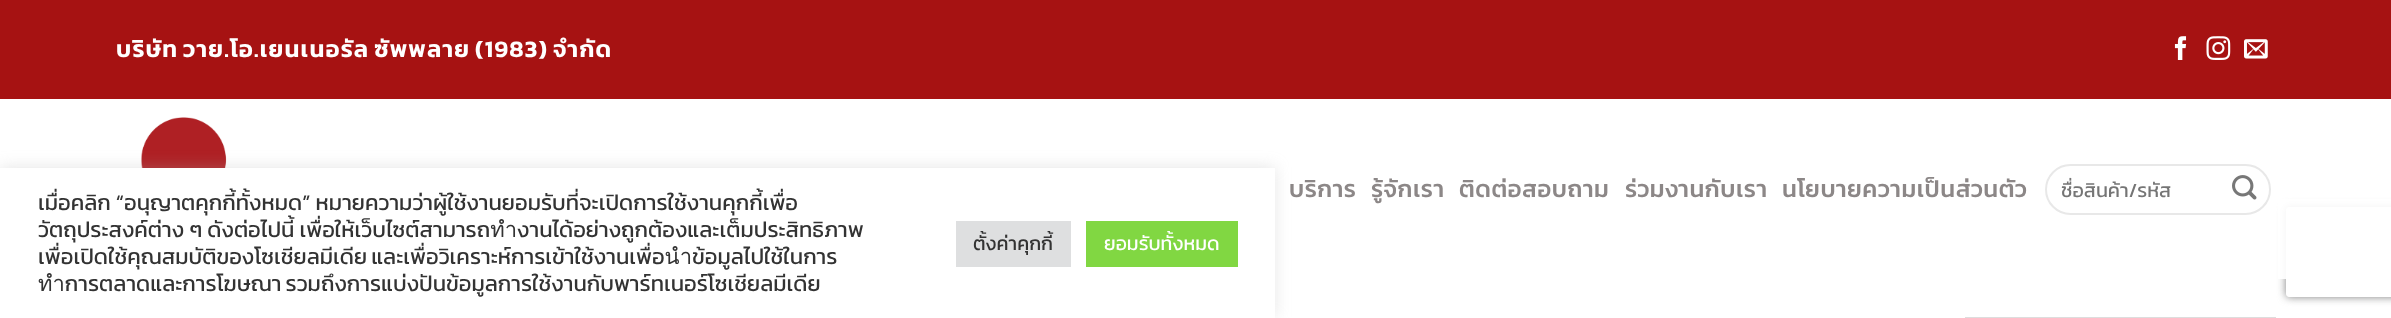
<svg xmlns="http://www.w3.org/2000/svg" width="2391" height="318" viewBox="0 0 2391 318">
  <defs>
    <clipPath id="clip1"><rect x="2061" y="174" width="189" height="30"/></clipPath>
    <clipPath id="clip2"><path d="M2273 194H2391V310H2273ZM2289 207H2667C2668.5 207 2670 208.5 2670 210V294C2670 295.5 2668.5 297 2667 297H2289C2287.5 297 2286 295.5 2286 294V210C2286 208.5 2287.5 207 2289 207Z" clip-rule="evenodd"/></clipPath>
  </defs>
  <rect width="100%" height="100%" fill="rgb(255,255,255)"/>
  <rect x="0" y="0" width="2391" height="99" fill="rgb(166,18,18)"/>
  <text x="116" y="57" word-spacing="-1.5" font-family="Kanit" font-size="23.75" font-weight="600" letter-spacing="1.2" fill="rgb(255,255,255)">บริษัท วาย.โอ.เยนเนอรัล ซัพพลาย (1983) จํากัด</text>
  <image x="2174" y="36" width="13" height="24" href="pic1.png"/>
  <image x="2206" y="36" width="25" height="24" href="pic2.png"/>
  <image x="2244" y="39" width="24" height="20" href="pic3.png"/>
  <image x="141" y="117" width="86" height="51" href="pic4.png"/>
  <g font-family="Kanit" font-size="24" font-weight="500" letter-spacing="0.5" fill="rgb(140,135,135)">
    <text x="1289" y="197">บริการ</text>
    <text x="1371" y="197">รู้จักเรา</text>
    <text x="1459" y="197">ติดต่อสอบถาม</text>
    <text x="1625" y="197">ร่วมงานกับเรา</text>
    <text x="1782" y="197">นโยบายความเป็นส่วนตัว</text>
  </g>
  <rect x="2046" y="165" width="224" height="49" rx="24.5" fill="none" stroke="rgb(232,232,232)" stroke-width="2"/>
  <g clip-path="url(#clip1)">
    <text x="2061" y="197" font-family="Kanit" font-size="19.75" fill="rgb(117,117,117)">ชื่อสินค้า/รหัส</text>
  </g>
  <image x="2232" y="175" width="25" height="25" href="pic5.png"/>
  <g clip-path="url(#clip2)">
    <rect x="2286" y="207" width="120" height="90" rx="3" fill="rgb(128,128,128)" filter="blur(4px)"/>
  </g>
  <rect x="2278" y="199" width="113" height="80" fill="rgba(255,255,255,0.9)"/>
  <rect x="1966" y="318" width="309" height="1" fill="none" stroke="rgb(221,221,221)" stroke-width="2"/>
  <rect x="0" y="167" width="1275" height="150" fill="rgba(172,171,171,0.3)" filter="blur(7.5px)"/>
  <rect x="0" y="168" width="1275" height="150" fill="rgb(255,255,255)"/>
  <g font-family="Kanit" font-size="22" fill="rgb(51,51,51)">
    <text>
      <tspan x="38" y="210">เมื่อคลิก “อนุญาตคุกกี้ทั้งหมด” หมายความว่าผู้ใช้งานยอมรับที่จะเปิดการใช้งานคุกกี้เพื่อ</tspan>
      <tspan x="38" y="237">วัตถุประสงค์ต่าง ๆ ดังต่อไปนี้ เพื่อให้เว็บไซต์สามารถทำงานได้อย่างถูกต้องและเต็มประสิทธิภาพ</tspan>
      <tspan x="38" y="264" word-spacing="-1">เพื่อเปิดใช้คุณสมบัติของโซเชียลมีเดีย และเพื่อวิเคราะห์การเข้าใช้งานเพื่อนำข้อมูลไปใช้ในการ</tspan>
      <tspan x="38" y="291" word-spacing="-1">ทำการตลาดและการโฆษณา รวมถึงการแบ่งปันข้อมูลการใช้งานกับพาร์ทเนอร์โซเชียลมีเดีย</tspan>
    </text>
  </g>
  <rect x="956" y="221" width="115" height="46" fill="rgb(222,223,224)"/>
  <text x="973" y="250" font-family="Kanit" font-size="19.5" fill="rgb(51,51,51)">ตั้งค่าคุกกี้</text>
  <rect x="1086" y="221" width="152" height="46" fill="rgb(129,215,66)"/>
  <text x="1104" y="250" font-family="Kanit" font-size="19.5" fill="rgb(255,255,255)">ยอมรับทั้งหมด</text>
</svg>
